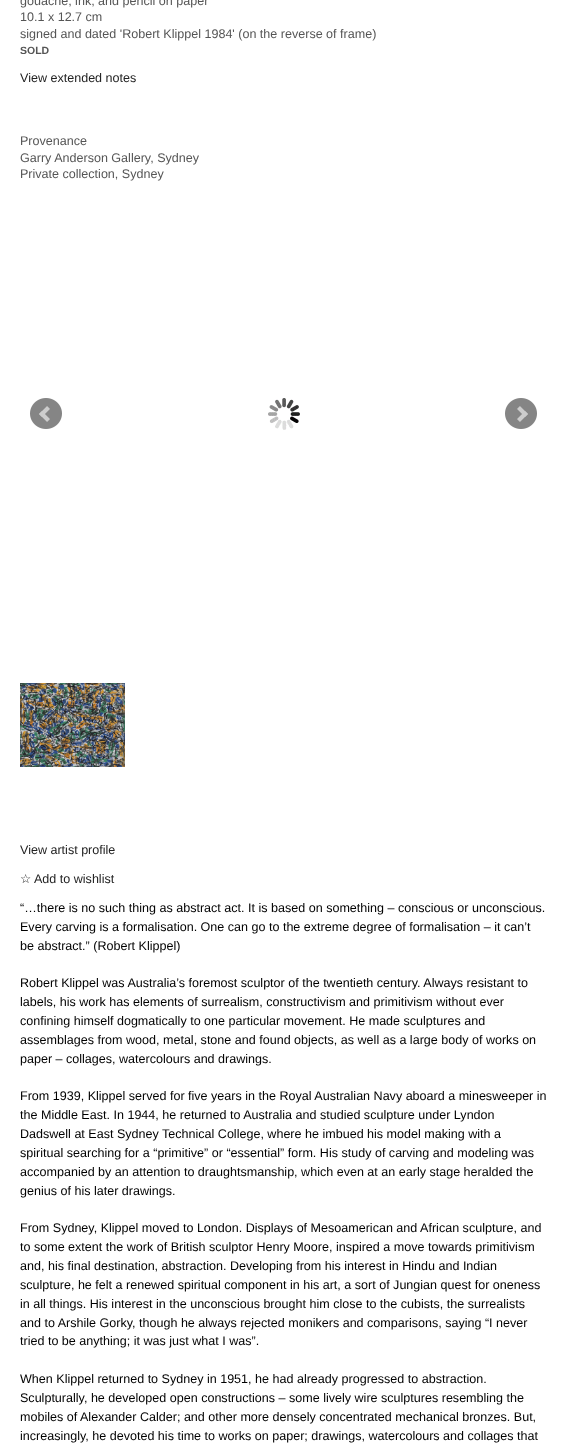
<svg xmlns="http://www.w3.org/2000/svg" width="567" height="1443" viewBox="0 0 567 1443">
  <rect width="100%" height="100%" fill="rgb(255,255,255)"/>
  <g font-family="Liberation Sans" font-size="12.55" fill="rgb(85,85,85)">
    <text>
      <tspan x="20" y="5">gouache, ink, and pencil on paper</tspan>
      <tspan x="20" y="21">10.1 x 12.7 cm</tspan>
      <tspan x="20" y="38">signed and dated 'Robert Klippel 1984' (on the reverse of frame)</tspan>
    </text>
  </g>
  <text x="20" y="54" font-family="Liberation Sans" font-size="10.5" font-weight="bold" fill="rgb(85,85,85)">SOLD</text>
  <text x="20" y="82" font-family="Liberation Sans" font-size="12.55" fill="rgb(34,34,34)">View extended notes</text>
  <g font-family="Liberation Sans" font-size="12.55" fill="rgb(85,85,85)">
    <text>
      <tspan x="20" y="145">Provenance</tspan>
      <tspan x="20" y="162">Garry Anderson Gallery, Sydney</tspan>
      <tspan x="20" y="178">Private collection, Sydney</tspan>
    </text>
  </g>
  <image x="30" y="398" width="32" height="31" href="pic1.png"/>
  <image x="505" y="398" width="32" height="31" href="pic2.png"/>
  <image x="268" y="398" width="32" height="32" href="pic3.png"/>
  <image x="20" y="683" width="105" height="84" href="pic4.png"/>
  <text x="20" y="854" font-family="Liberation Sans" font-size="12.55" fill="rgb(34,34,34)">View artist profile</text>
  <text x="20" y="883" font-family="DejaVu Sans" font-size="12.55" fill="rgb(34,34,34)">☆</text>
  <text x="34" y="883" font-family="Liberation Sans" font-size="12.55" fill="rgb(34,34,34)">Add to wishlist</text>
  <g font-family="Liberation Sans" font-size="12.55" fill="rgb(0,0,0)">
    <text>
      <tspan x="20" y="912">“…there is no such thing as abstract act. It is based on something – conscious or unconscious.</tspan>
      <tspan x="20" y="931">Every carving is a formalisation. One can go to the extreme degree of formalisation – it can’t</tspan>
      <tspan x="20" y="950">be abstract.” (Robert Klippel)</tspan>
    </text>
    <text>
      <tspan x="20" y="987">Robert Klippel was Australia’s foremost sculptor of the twentieth century. Always resistant to</tspan>
      <tspan x="20" y="1006">labels, his work has elements of surrealism, constructivism and primitivism without ever</tspan>
      <tspan x="20" y="1025">confining himself dogmatically to one particular movement. He made sculptures and</tspan>
      <tspan x="20" y="1044">assemblages from wood, metal, stone and found objects, as well as a large body of works on</tspan>
      <tspan x="20" y="1063">paper – collages, watercolours and drawings.</tspan>
    </text>
    <text>
      <tspan x="20" y="1100">From 1939, Klippel served for five years in the Royal Australian Navy aboard a minesweeper in</tspan>
      <tspan x="20" y="1119">the Middle East. In 1944, he returned to Australia and studied sculpture under Lyndon</tspan>
      <tspan x="20" y="1138">Dadswell at East Sydney Technical College, where he imbued his model making with a</tspan>
      <tspan x="20" y="1157">spiritual searching for a “primitive” or “essential” form. His study of carving and modeling was</tspan>
      <tspan x="20" y="1176">accompanied by an attention to draughtsmanship, which even at an early stage heralded the</tspan>
      <tspan x="20" y="1195">genius of his later drawings.</tspan>
    </text>
    <text>
      <tspan x="20" y="1232">From Sydney, Klippel moved to London. Displays of Mesoamerican and African sculpture, and</tspan>
      <tspan x="20" y="1251">to some extent the work of British sculptor Henry Moore, inspired a move towards primitivism</tspan>
      <tspan x="20" y="1270">and, his final destination, abstraction. Developing from his interest in Hindu and Indian</tspan>
      <tspan x="20" y="1289">sculpture, he felt a renewed spiritual component in his art, a sort of Jungian quest for oneness</tspan>
      <tspan x="20" y="1308">in all things. His interest in the unconscious brought him close to the cubists, the surrealists</tspan>
      <tspan x="20" y="1327">and to Arshile Gorky, though he always rejected monikers and comparisons, saying “I never</tspan>
      <tspan x="20" y="1345">tried to be anything; it was just what I was”.</tspan>
    </text>
    <text>
      <tspan x="20" y="1383">When Klippel returned to Sydney in 1951, he had already progressed to abstraction.</tspan>
      <tspan x="20" y="1402">Sculpturally, he developed open constructions – some lively wire sculptures resembling the</tspan>
      <tspan x="20" y="1421">mobiles of Alexander Calder; and other more densely concentrated mechanical bronzes. But,</tspan>
      <tspan x="20" y="1440">increasingly, he devoted his time to works on paper; drawings, watercolours and collages that</tspan>
    </text>
  </g>
</svg>
